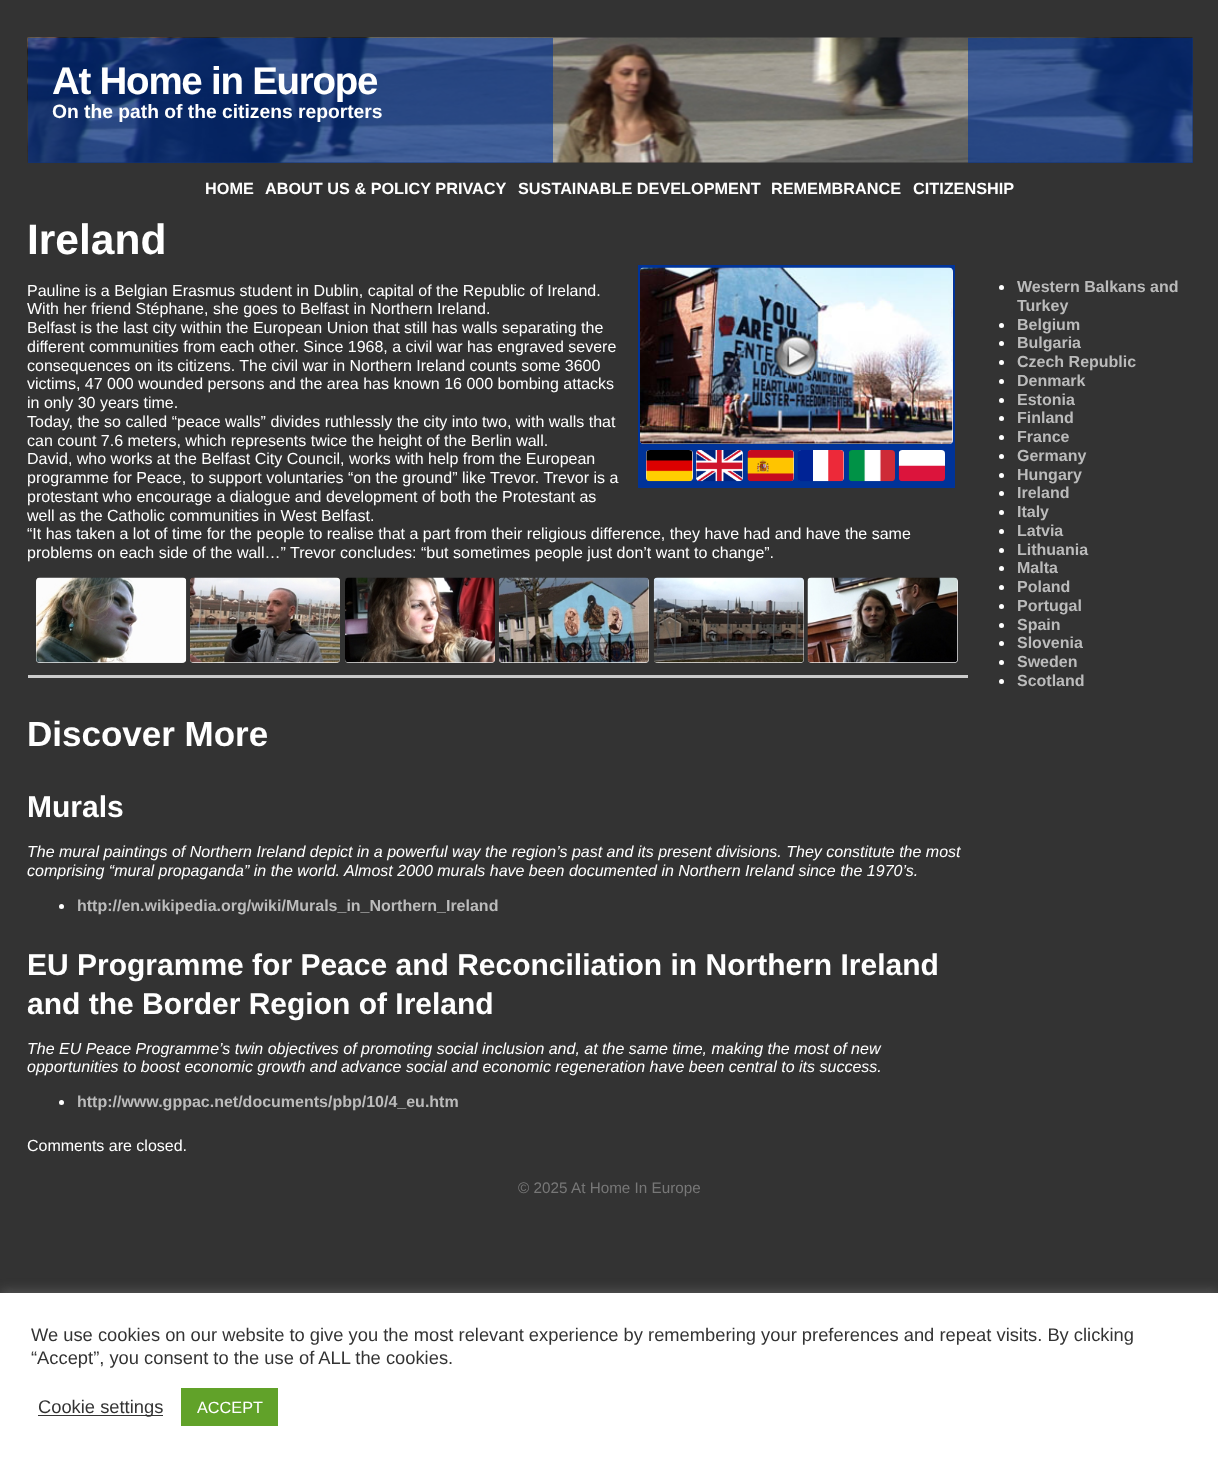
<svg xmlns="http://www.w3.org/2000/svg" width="1218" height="1463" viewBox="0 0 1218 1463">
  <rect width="100%" height="100%" fill="rgb(51,51,51)"/>
  <image x="27" y="37" width="1166" height="126" href="pic1.png"/>
  <rect x="28" y="38" width="525" height="125" fill="rgba(0,51,153,0.6)"/>
  <rect x="968" y="38" width="225" height="125" fill="rgba(0,51,153,0.6)"/>
  <text x="52" y="94" font-family="Liberation Sans" font-size="38.5" font-weight="bold" letter-spacing="-1.25" fill="rgb(255,255,255)">At Home in Europe</text>
  <text x="52" y="118" font-family="Liberation Sans" font-size="19.25" font-weight="bold" fill="rgb(255,255,255)">On the path of the citizens reporters</text>
  <g font-family="Liberation Sans" font-size="16.25" font-weight="bold" fill="rgb(255,255,255)">
    <text x="205" y="194">HOME</text>
    <text x="265" y="194">ABOUT US &amp; POLICY PRIVACY</text>
    <text x="518" y="194">SUSTAINABLE DEVELOPMENT</text>
    <text x="771" y="194">REMEMBRANCE</text>
    <text x="913" y="194">CITIZENSHIP</text>
  </g>
  <text x="27" y="254" font-family="Liberation Sans" font-size="42.5" font-weight="bold" fill="rgb(255,255,255)">Ireland</text>
  <rect x="638" y="265" width="317" height="223" fill="rgb(0,51,153)"/>
  <rect x="640" y="268" width="313" height="176" rx="4" fill="rgb(243,243,243)"/>
  <image x="640" y="267" width="313" height="177" href="pic2.png"/>
  <rect x="646" y="450" width="47" height="31" rx="4" fill="rgb(243,243,243)"/>
  <image x="646" y="450" width="47" height="32" href="pic3.png"/>
  <rect x="696" y="450" width="47" height="31" rx="4" fill="rgb(243,243,243)"/>
  <image x="696" y="450" width="47" height="32" href="pic4.png"/>
  <rect x="748" y="450" width="46" height="31" rx="4" fill="rgb(243,243,243)"/>
  <image x="747" y="450" width="47" height="32" href="pic5.png"/>
  <rect x="798" y="450" width="46" height="31" rx="4" fill="rgb(243,243,243)"/>
  <image x="797" y="450" width="47" height="32" href="pic6.png"/>
  <image x="848" y="450" width="47" height="32" href="pic7.png"/>
  <image x="898" y="450" width="47" height="32" href="pic8.png"/>
  <g font-family="Liberation Sans" font-size="16" fill="rgb(255,255,255)">
    <text>
      <tspan x="27" y="296">Pauline is a Belgian Erasmus student in Dublin, capital of the Republic of Ireland.</tspan>
      <tspan x="27" y="314">With her friend Stéphane, she goes to Belfast in Northern Ireland.</tspan>
      <tspan x="27" y="333">Belfast is the last city within the European Union that still has walls separating the</tspan>
      <tspan x="27" y="352">different communities from each other. Since 1968, a civil war has engraved severe</tspan>
      <tspan x="27" y="371">consequences on its citizens. The civil war in Northern Ireland counts some 3600</tspan>
      <tspan x="27" y="389">victims, 47 000 wounded persons and the area has known 16 000 bombing attacks</tspan>
      <tspan x="27" y="408">in only 30 years time.</tspan>
      <tspan x="27" y="427">Today, the so called “peace walls” divides ruthlessly the city into two, with walls that</tspan>
      <tspan x="27" y="446">can count 7.6 meters, which represents twice the height of the Berlin wall.</tspan>
      <tspan x="27" y="464">David, who works at the Belfast City Council, works with help from the European</tspan>
      <tspan x="27" y="483">programme for Peace, to support voluntaries “on the ground” like Trevor. Trevor is a</tspan>
      <tspan x="27" y="502">protestant who encourage a dialogue and development of both the Protestant as</tspan>
      <tspan x="27" y="521">well as the Catholic communities in West Belfast.</tspan>
      <tspan x="27" y="539">“It has taken a lot of time for the people to realise that a part from their religious difference, they have had and have the same</tspan>
      <tspan x="27" y="558">problems on each side of the wall…” Trevor concludes: “but sometimes people just don’t want to change”.</tspan>
    </text>
  </g>
  <rect x="36" y="578" width="150" height="85" rx="4" fill="rgb(243,243,243)"/>
  <image x="36" y="577" width="151" height="86" href="pic9.png"/>
  <rect x="190" y="578" width="150" height="85" rx="4" fill="rgb(243,243,243)"/>
  <image x="190" y="577" width="150" height="86" href="pic10.png"/>
  <rect x="345" y="578" width="150" height="85" rx="4" fill="rgb(243,243,243)"/>
  <image x="345" y="577" width="150" height="86" href="pic11.png"/>
  <rect x="499" y="578" width="150" height="85" rx="4" fill="rgb(243,243,243)"/>
  <image x="498" y="577" width="151" height="86" href="pic12.png"/>
  <rect x="654" y="578" width="150" height="85" rx="4" fill="rgb(243,243,243)"/>
  <image x="653" y="577" width="151" height="86" href="pic13.png"/>
  <rect x="808" y="578" width="150" height="85" rx="4" fill="rgb(243,243,243)"/>
  <image x="807" y="577" width="151" height="86" href="pic14.png"/>
  <rect x="28" y="675" width="940" height="3" fill="rgb(204,204,204)"/>
  <text x="27" y="746" font-family="Liberation Sans" font-size="35" font-weight="bold" fill="rgb(255,255,255)">Discover More</text>
  <text x="27" y="817" font-family="Liberation Sans" font-size="30" font-weight="bold" fill="rgb(255,255,255)">Murals</text>
  <g font-family="Liberation Sans" font-size="16" font-style="italic" fill="rgb(255,255,255)">
    <text>
      <tspan x="27" y="857">The mural paintings of Northern Ireland depict in a powerful way the region’s past and its present divisions. They constitute the most</tspan>
      <tspan x="27" y="876">comprising “mural propaganda” in the world. Almost 2000 murals have been documented in Northern Ireland since the 1970’s.</tspan>
    </text>
  </g>
  <circle cx="61.5" cy="906.5" r="2.5" fill="rgb(255,255,255)"/>
  <text x="77" y="911" font-family="Liberation Sans" font-size="16" font-weight="bold" fill="rgb(187,187,187)">http://en.wikipedia.org/wiki/Murals_in_Northern_Ireland</text>
  <g font-family="Liberation Sans" font-size="30" font-weight="bold" fill="rgb(255,255,255)">
    <text>
      <tspan x="27" y="975">EU Programme for Peace and Reconciliation in Northern Ireland</tspan>
      <tspan x="27" y="1014">and the Border Region of Ireland</tspan>
    </text>
  </g>
  <g font-family="Liberation Sans" font-size="16" font-style="italic" fill="rgb(255,255,255)">
    <text>
      <tspan x="27" y="1054">The EU Peace Programme’s twin objectives of promoting social inclusion and, at the same time, making the most of new</tspan>
      <tspan x="27" y="1072">opportunities to boost economic growth and advance social and economic regeneration have been central to its success.</tspan>
    </text>
  </g>
  <circle cx="61.5" cy="1102.5" r="2.5" fill="rgb(255,255,255)"/>
  <text x="77" y="1107" font-family="Liberation Sans" font-size="16" font-weight="bold" fill="rgb(187,187,187)">http://www.gppac.net/documents/pbp/10/4_eu.htm</text>
  <circle cx="1001.5" cy="287.5" r="2.5" fill="rgb(255,255,255)"/>
  <g font-family="Liberation Sans" font-size="16" font-weight="bold" fill="rgb(187,187,187)">
    <text>
      <tspan x="1017" y="292">Western Balkans and</tspan>
      <tspan x="1017" y="311">Turkey</tspan>
    </text>
  </g>
  <circle cx="1001.5" cy="325.5" r="2.5" fill="rgb(255,255,255)"/>
  <text x="1017" y="330" font-family="Liberation Sans" font-size="16" font-weight="bold" fill="rgb(187,187,187)">Belgium</text>
  <circle cx="1001.5" cy="343.5" r="2.5" fill="rgb(255,255,255)"/>
  <text x="1017" y="348" font-family="Liberation Sans" font-size="16" font-weight="bold" fill="rgb(187,187,187)">Bulgaria</text>
  <circle cx="1001.5" cy="362.5" r="2.5" fill="rgb(255,255,255)"/>
  <text x="1017" y="367" font-family="Liberation Sans" font-size="16" font-weight="bold" fill="rgb(187,187,187)">Czech Republic</text>
  <circle cx="1001.5" cy="381.5" r="2.5" fill="rgb(255,255,255)"/>
  <text x="1017" y="386" font-family="Liberation Sans" font-size="16" font-weight="bold" fill="rgb(187,187,187)">Denmark</text>
  <circle cx="1001.5" cy="400.5" r="2.5" fill="rgb(255,255,255)"/>
  <text x="1017" y="405" font-family="Liberation Sans" font-size="16" font-weight="bold" fill="rgb(187,187,187)">Estonia</text>
  <circle cx="1001.5" cy="418.5" r="2.5" fill="rgb(255,255,255)"/>
  <text x="1017" y="423" font-family="Liberation Sans" font-size="16" font-weight="bold" fill="rgb(187,187,187)">Finland</text>
  <circle cx="1001.5" cy="437.5" r="2.5" fill="rgb(255,255,255)"/>
  <text x="1017" y="442" font-family="Liberation Sans" font-size="16" font-weight="bold" fill="rgb(187,187,187)">France</text>
  <circle cx="1001.5" cy="456.5" r="2.5" fill="rgb(255,255,255)"/>
  <text x="1017" y="461" font-family="Liberation Sans" font-size="16" font-weight="bold" fill="rgb(187,187,187)">Germany</text>
  <circle cx="1001.5" cy="475.5" r="2.5" fill="rgb(255,255,255)"/>
  <text x="1017" y="480" font-family="Liberation Sans" font-size="16" font-weight="bold" fill="rgb(187,187,187)">Hungary</text>
  <circle cx="1001.5" cy="493.5" r="2.5" fill="rgb(255,255,255)"/>
  <text x="1017" y="498" font-family="Liberation Sans" font-size="16" font-weight="bold" fill="rgb(187,187,187)">Ireland</text>
  <circle cx="1001.5" cy="512.5" r="2.5" fill="rgb(255,255,255)"/>
  <text x="1017" y="517" font-family="Liberation Sans" font-size="16" font-weight="bold" fill="rgb(187,187,187)">Italy</text>
  <circle cx="1001.5" cy="531.5" r="2.5" fill="rgb(255,255,255)"/>
  <text x="1017" y="536" font-family="Liberation Sans" font-size="16" font-weight="bold" fill="rgb(187,187,187)">Latvia</text>
  <circle cx="1001.5" cy="550.5" r="2.5" fill="rgb(255,255,255)"/>
  <text x="1017" y="555" font-family="Liberation Sans" font-size="16" font-weight="bold" fill="rgb(187,187,187)">Lithuania</text>
  <circle cx="1001.5" cy="568.5" r="2.5" fill="rgb(255,255,255)"/>
  <text x="1017" y="573" font-family="Liberation Sans" font-size="16" font-weight="bold" fill="rgb(187,187,187)">Malta</text>
  <circle cx="1001.5" cy="587.5" r="2.5" fill="rgb(255,255,255)"/>
  <text x="1017" y="592" font-family="Liberation Sans" font-size="16" font-weight="bold" fill="rgb(187,187,187)">Poland</text>
  <circle cx="1001.5" cy="606.5" r="2.5" fill="rgb(255,255,255)"/>
  <text x="1017" y="611" font-family="Liberation Sans" font-size="16" font-weight="bold" fill="rgb(187,187,187)">Portugal</text>
  <circle cx="1001.5" cy="625.5" r="2.5" fill="rgb(255,255,255)"/>
  <text x="1017" y="630" font-family="Liberation Sans" font-size="16" font-weight="bold" fill="rgb(187,187,187)">Spain</text>
  <circle cx="1001.5" cy="643.5" r="2.5" fill="rgb(255,255,255)"/>
  <text x="1017" y="648" font-family="Liberation Sans" font-size="16" font-weight="bold" fill="rgb(187,187,187)">Slovenia</text>
  <circle cx="1001.5" cy="662.5" r="2.5" fill="rgb(255,255,255)"/>
  <text x="1017" y="667" font-family="Liberation Sans" font-size="16" font-weight="bold" fill="rgb(187,187,187)">Sweden</text>
  <circle cx="1001.5" cy="681.5" r="2.5" fill="rgb(255,255,255)"/>
  <text x="1017" y="686" font-family="Liberation Sans" font-size="16" font-weight="bold" fill="rgb(187,187,187)">Scotland</text>
  <text x="27" y="1151" font-family="Liberation Sans" font-size="16" fill="rgb(255,255,255)">Comments are closed.</text>
  <g font-family="Liberation Sans" font-size="15.25" fill="rgb(119,119,119)">
    <text x="518" y="1193">© 2025</text>
    <text x="571" y="1193">At Home In Europe</text>
  </g>
  <rect x="0" y="1291" width="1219" height="172" fill="rgba(172,171,171,0.3)" filter="blur(6px)"/>
  <rect x="0" y="1293" width="1218" height="170" fill="rgb(255,255,255)"/>
  <g font-family="Liberation Sans" font-size="18.33" fill="rgb(51,51,51)">
    <text>
      <tspan x="31" y="1341">We use cookies on our website to give you the most relevant experience by remembering your preferences and repeat visits. By clicking</tspan>
      <tspan x="31" y="1364">“Accept”, you consent to the use of ALL the cookies.</tspan>
    </text>
  </g>
  <rect x="38" y="1415" width="125" height="1" fill="rgb(51,51,51)"/>
  <text x="38" y="1413" font-family="Liberation Sans" font-size="18.33" fill="rgb(51,51,51)">Cookie settings</text>
  <rect x="181" y="1388" width="97" height="38" fill="rgb(97,162,41)"/>
  <text x="197" y="1413" font-family="Liberation Sans" font-size="16.25" fill="rgb(255,255,255)">ACCEPT</text>
</svg>
